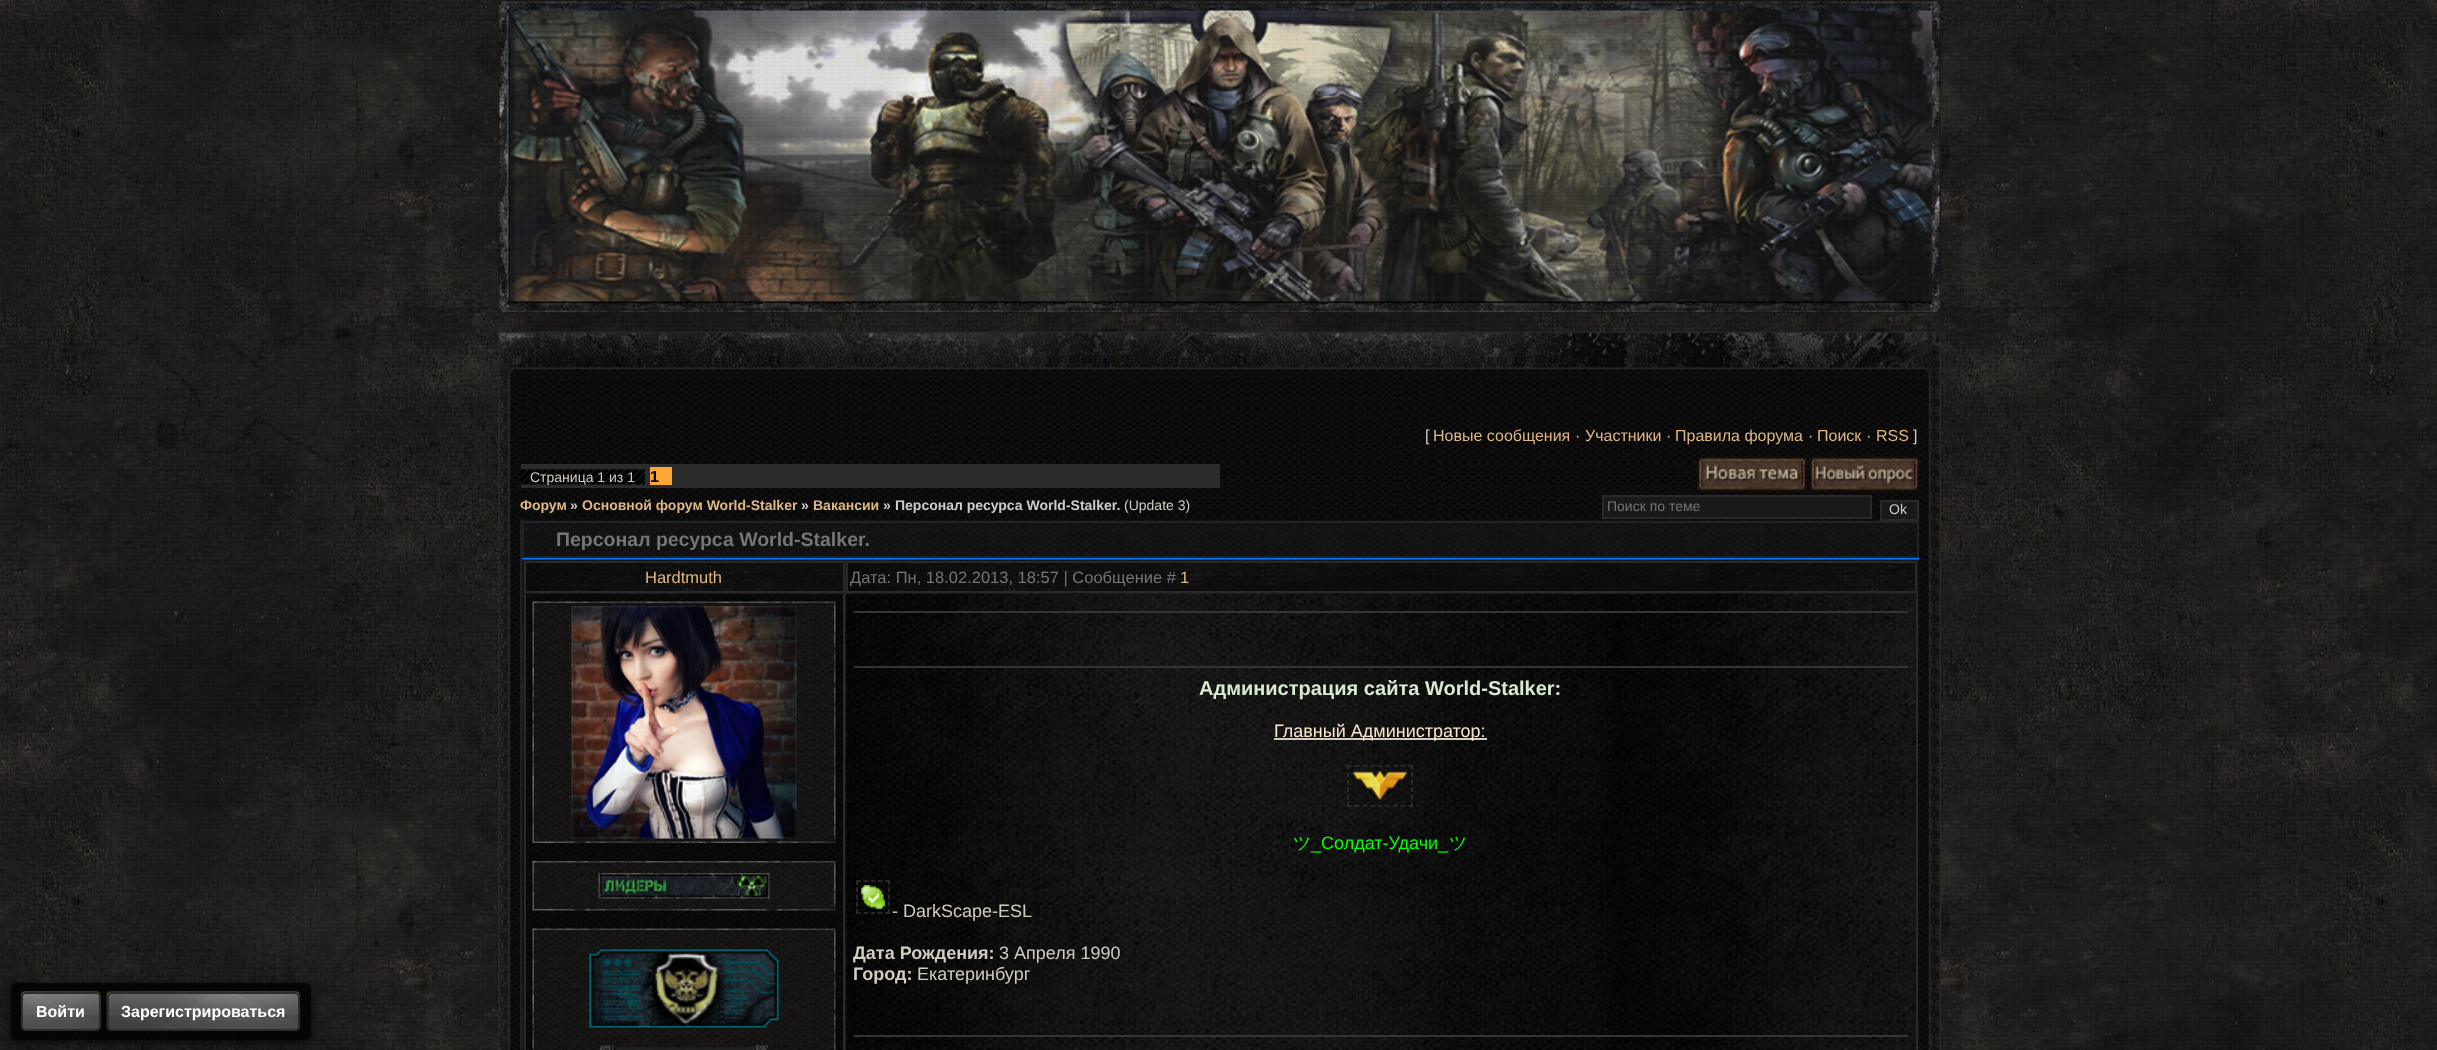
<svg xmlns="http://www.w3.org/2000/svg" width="2437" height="1050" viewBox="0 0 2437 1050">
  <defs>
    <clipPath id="clip1"><path d="M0 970H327V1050H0ZM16 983H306C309 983 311 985 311 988V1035C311 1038 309 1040 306 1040H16C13 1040 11 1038 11 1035V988C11 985 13 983 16 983Z" clip-rule="evenodd"/></clipPath>
  </defs>
  <rect width="100%" height="100%" fill="rgb(255,255,255)"/>
  <image x="0" y="0" width="2437" height="1050" href="pic1.png"/>
  <image x="498" y="0" width="1443" height="314" href="pic2.png"/>
  <image x="498" y="331" width="1443" height="46" href="pic3.png"/>
  <image x="498" y="376" width="1443" height="674" href="pic4.png"/>
  <text x="1425" y="441" font-family="Liberation Sans" font-size="16" fill="rgb(210,203,192)">[</text>
  <text x="1433" y="441" font-family="Liberation Sans" font-size="16" fill="rgb(223,183,131)">Новые сообщения</text>
  <text x="1575" y="441" font-family="Liberation Sans" font-size="16" fill="rgb(210,203,192)">·</text>
  <text x="1585" y="441" font-family="Liberation Sans" font-size="16" fill="rgb(223,183,131)">Участники</text>
  <text x="1666" y="441" font-family="Liberation Sans" font-size="16" fill="rgb(210,203,192)">·</text>
  <text x="1675" y="441" font-family="Liberation Sans" font-size="16" fill="rgb(223,183,131)">Правила форума</text>
  <text x="1808" y="441" font-family="Liberation Sans" font-size="16" fill="rgb(210,203,192)">·</text>
  <text x="1817" y="441" font-family="Liberation Sans" font-size="16" fill="rgb(223,183,131)">Поиск</text>
  <text x="1866" y="441" font-family="Liberation Sans" font-size="16" fill="rgb(210,203,192)">·</text>
  <text x="1876" y="441" font-family="Liberation Sans" font-size="16" fill="rgb(223,183,131)">RSS</text>
  <text x="1913" y="441" font-family="Liberation Sans" font-size="16" fill="rgb(210,203,192)">]</text>
  <rect x="521" y="464" width="699" height="24" fill="rgb(43,43,43)"/>
  <image x="520" y="469" width="125" height="16" href="pic5.png"/>
  <text x="530" y="482" font-family="Liberation Sans" font-size="14" fill="rgb(210,203,192)">Страница 1 из 1</text>
  <rect x="650" y="467" width="22" height="18" fill="rgb(252,167,53)"/>
  <text x="650" y="482" font-family="Liberation Sans" font-size="16" font-weight="bold" fill="rgb(0,0,0)">1</text>
  <image x="1698" y="457" width="108" height="34" href="pic6.png"/>
  <image x="1810" y="457" width="109" height="34" href="pic7.png"/>
  <text x="520" y="510" font-family="Liberation Sans" font-size="14" font-weight="bold" fill="rgb(223,183,131)">Форум</text>
  <text x="570" y="510" font-family="Liberation Sans" font-size="14" font-weight="bold" fill="rgb(210,203,192)">»</text>
  <text x="582" y="510" font-family="Liberation Sans" font-size="14" font-weight="bold" fill="rgb(223,183,131)">Основной форум World-Stalker</text>
  <text x="801" y="510" font-family="Liberation Sans" font-size="14" font-weight="bold" fill="rgb(210,203,192)">»</text>
  <text x="813" y="510" font-family="Liberation Sans" font-size="14" font-weight="bold" fill="rgb(223,183,131)">Вакансии</text>
  <text x="883" y="510" font-family="Liberation Sans" font-size="14" font-weight="bold" fill="rgb(210,203,192)">»</text>
  <text x="895" y="510" font-family="Liberation Sans" font-size="14" font-weight="bold" fill="rgb(204,204,204)">Персонал ресурса World-Stalker.</text>
  <text x="1124" y="510" font-family="Liberation Sans" font-size="14" fill="rgb(210,203,192)">(Update 3)</text>
  <rect x="1603" y="496" width="268" height="22" fill="rgb(25,25,25)" stroke="rgb(41,41,41)" stroke-width="2"/>
  <text x="1607" y="511" font-family="Liberation Sans" font-size="14" fill="rgb(117,117,117)">Поиск по теме</text>
  <image x="522" y="520" width="1358" height="1" href="pic8.png"/>
  <image x="522" y="520" width="1395" height="36" href="pic9.png"/>
  <rect x="1881" y="501" width="37" height="19" fill="rgb(25,25,25)" stroke="rgb(41,41,41)" stroke-width="2"/>
  <text x="1889" y="514" font-family="Liberation Sans" font-size="14" fill="rgb(204,204,204)">Ok</text>
  <path d="M520 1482V520H522V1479Z" fill="rgb(31,31,31)"/>
  <rect x="523" y="522" width="1395" height="35" fill="none" stroke="rgb(34,34,34)" stroke-width="2"/>
  <text x="556" y="546" font-family="Liberation Sans" font-size="19.5" font-weight="bold" fill="rgb(117,117,117)">Персонал ресурса World-Stalker.</text>
  <rect x="522" y="558" width="1397" height="2" fill="rgb(0,120,255)"/>
  <rect x="1918" y="560" width="1" height="490" fill="rgb(0,0,0)"/>
  <image x="522" y="559" width="1397" height="491" href="pic10.png"/>
  <image x="523" y="561" width="320" height="32" href="pic11.png"/>
  <rect x="525" y="562" width="319" height="30" fill="none" stroke="rgb(41,41,41)" stroke-width="2"/>
  <text x="645" y="583" font-family="Liberation Sans" font-size="16.5" fill="rgb(223,183,131)">Hardtmuth</text>
  <image x="848" y="563" width="1067" height="28" href="pic12.png"/>
  <rect x="847" y="562" width="1069" height="30" fill="none" stroke="rgb(41,41,41)" stroke-width="2"/>
  <text x="850" y="583" font-family="Liberation Sans" font-size="16.5" fill="rgb(117,117,117)">Дата: Пн, 18.02.2013, 18:57 | Сообщение #</text>
  <text x="1180" y="583" font-family="Liberation Sans" font-size="16.5" fill="rgb(223,183,131)">1</text>
  <image x="523" y="594" width="320" height="456" href="pic13.png"/>
  <rect x="843" y="594" width="2" height="456" fill="rgb(41,41,41)"/>
  <rect x="524" y="594" width="2" height="456" fill="rgb(41,41,41)"/>
  <image x="532" y="601" width="304" height="242" href="pic14.png"/>
  <image x="534" y="603" width="300" height="239" href="pic15.png"/>
  <image x="571" y="606" width="226" height="233" href="pic16.png"/>
  <image x="532" y="861" width="304" height="50" href="pic17.png"/>
  <image x="534" y="862" width="300" height="47" href="pic18.png"/>
  <image x="598" y="873" width="172" height="26" href="pic19.png"/>
  <image x="532" y="928" width="304" height="122" href="pic20.png"/>
  <image x="534" y="930" width="300" height="120" href="pic21.png"/>
  <image x="589" y="949" width="190" height="79" href="pic22.png"/>
  <image x="600" y="1045" width="168" height="5" href="pic23.png"/>
  <image x="846" y="594" width="1070" height="456" href="pic24.png"/>
  <rect x="1916" y="594" width="2" height="456" fill="rgb(41,41,41)"/>
  <rect x="854" y="611" width="1054" height="2" fill="rgb(52,52,52)"/>
  <rect x="854" y="666" width="1054" height="2" fill="rgb(52,52,52)"/>
  <text x="1199" y="695" font-family="Liberation Sans" font-size="20" font-weight="bold" fill="rgb(217,234,211)">Администрация сайта World-Stalker:</text>
  <rect x="1274" y="738" width="213" height="2" fill="rgb(210,203,192)"/>
  <text x="1274" y="737" font-family="Liberation Sans" font-size="18" fill="rgb(252,229,205)">Главный Администратор:</text>
  <path d="M1347 766H1413" fill="none" stroke="rgb(51,51,51)" stroke-width="1.5" stroke-dasharray="4.5 3.18"/>
  <path d="M1412 765V807" fill="none" stroke="rgb(51,51,51)" stroke-width="1.5" stroke-dasharray="4.5 3"/>
  <path d="M1347 806H1413" fill="none" stroke="rgb(51,51,51)" stroke-width="1.5" stroke-dasharray="4.5 3.18"/>
  <path d="M1348 765V807" fill="none" stroke="rgb(51,51,51)" stroke-width="1.5" stroke-dasharray="4.5 3"/>
  <image x="1352" y="770" width="56" height="32" href="pic25.png"/>
  <text x="1293" y="849" font-family="WenQuanYi Zen Hei" font-size="18" font-weight="500" fill="rgb(0,255,0)">ツ</text>
  <text x="1311" y="849" font-family="Liberation Sans" font-size="18" fill="rgb(0,255,0)">_Солдат-Удачи_</text>
  <text x="1449" y="849" font-family="WenQuanYi Zen Hei" font-size="18" font-weight="500" fill="rgb(0,255,0)">ツ</text>
  <path d="M856.5 881H889.5M889 880.5V913.5M856.5 913H889.5M857 880.5V913.5" fill="none" stroke="rgb(51,51,51)" stroke-width="1.5" stroke-dasharray="4.5 2.62"/>
  <image x="861" y="885" width="24" height="24" href="pic26.png"/>
  <text x="892" y="917" font-family="Liberation Sans" font-size="18" fill="rgb(210,203,192)">- DarkScape-ESL</text>
  <text x="853" y="959" font-family="Liberation Sans" font-size="18" font-weight="bold" fill="rgb(210,203,192)">Дата Рождения:</text>
  <text x="999" y="959" font-family="Liberation Sans" font-size="18" fill="rgb(210,203,192)">3 Апреля 1990</text>
  <text x="853" y="980" font-family="Liberation Sans" font-size="18" font-weight="bold" fill="rgb(210,203,192)">Город:</text>
  <text x="917" y="980" font-family="Liberation Sans" font-size="18" fill="rgb(210,203,192)">Екатеринбург</text>
  <rect x="854" y="1035" width="1054" height="2" fill="rgb(52,52,52)"/>
  <g clip-path="url(#clip1)">
    <rect x="11" y="986" width="300" height="57" rx="5" fill="rgba(0,0,0,0.7)" filter="blur(5px)"/>
  </g>
  <rect x="11" y="983" width="300" height="57" rx="5" fill="rgba(0,0,0,0.8)"/>
  <image x="21" y="991" width="80" height="40" href="pic27.png"/>
  <rect x="22" y="993" width="78" height="37" rx="4" fill="none" stroke="rgb(45,45,45)" stroke-width="2"/>
  <text x="36" y="1017" font-family="Liberation Sans" font-size="16" font-weight="bold" fill="rgb(255,255,255)">Войти</text>
  <image x="106" y="991" width="194" height="40" href="pic28.png"/>
  <rect x="108" y="993" width="191" height="37" rx="4" fill="none" stroke="rgb(45,45,45)" stroke-width="2"/>
  <text x="121" y="1017" font-family="Liberation Sans" font-size="16" font-weight="bold" fill="rgb(255,255,255)">Зарегистрироваться</text>
</svg>
